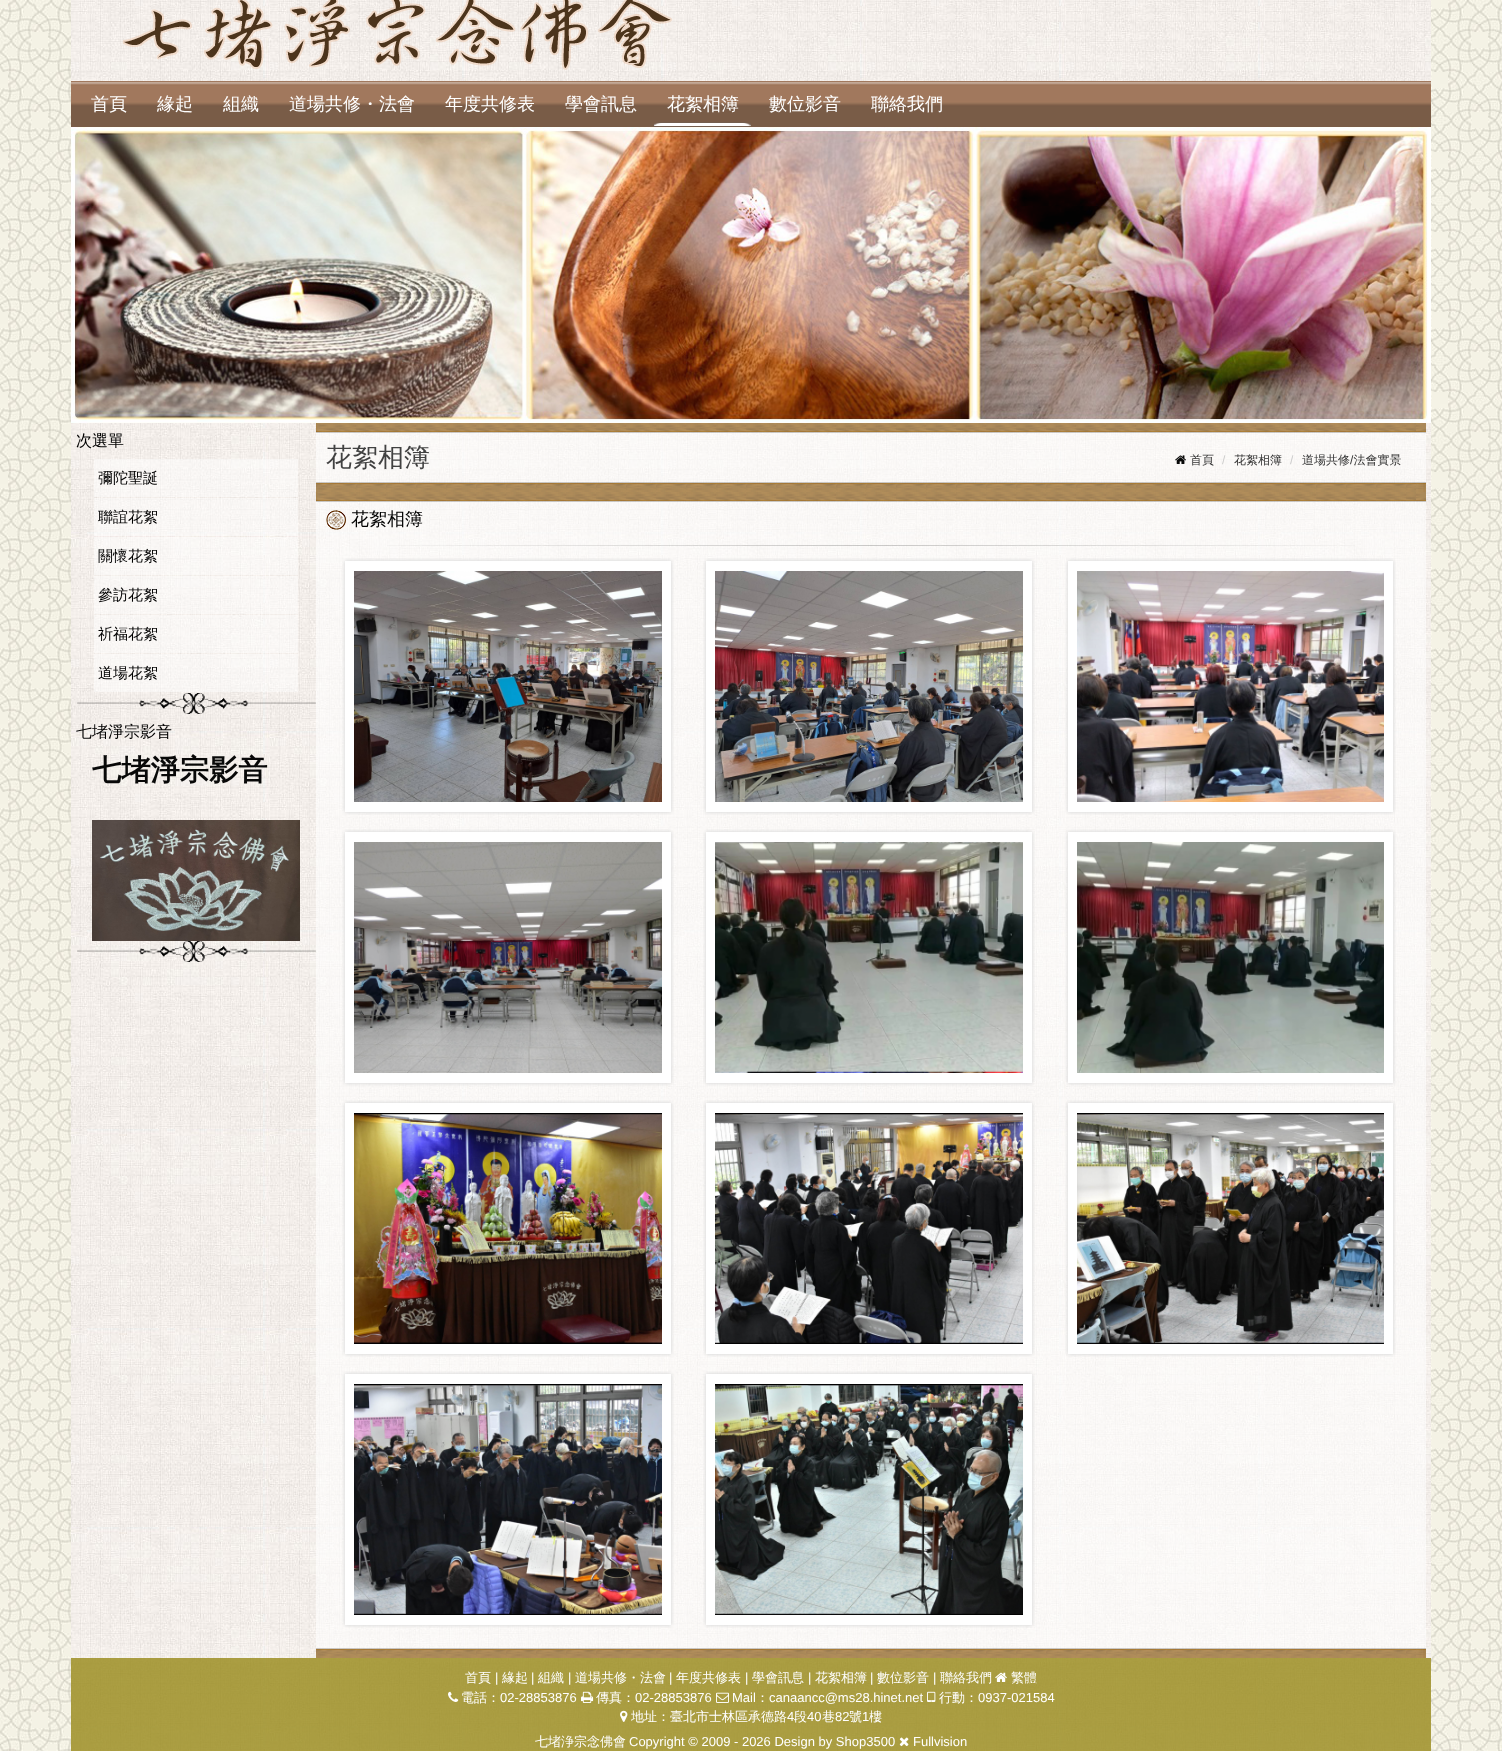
<svg xmlns="http://www.w3.org/2000/svg" width="1502" height="1751" viewBox="0 0 1502 1751">
  <defs>
    <linearGradient id="g1" gradientUnits="userSpaceOnUse" x1="329" y1="546" x2="1413" y2="546"><stop offset="0" stop-color="rgb(0,0,0)" stop-opacity="0"/><stop offset="0.5" stop-color="rgb(0,0,0)" stop-opacity="0.2"/><stop offset="1" stop-color="rgb(0,0,0)" stop-opacity="0"/></linearGradient>
  </defs>
  <rect width="100%" height="100%" fill="rgb(255,255,255)"/>
  <image x="0" y="0" width="1502" height="1751" href="pic1.png"/>
  <image x="71" y="0" width="1360" height="1751" href="pic2.png"/>
  <image x="122" y="0" width="551" height="70" href="pic3.png"/>
  <image x="71" y="81" width="1360" height="46" href="pic4.png"/>
  <g font-family="WenQuanYi Zen Hei" font-size="18" font-weight="500" fill="rgb(255,255,255)">
    <text x="91" y="110">首頁</text>
    <text x="157" y="110">緣起</text>
    <text x="223" y="110">組織</text>
    <text x="289" y="110">道場共修・法會</text>
    <text x="445" y="110">年度共修表</text>
    <text x="565" y="110">學會訊息</text>
  </g>
  <image x="653" y="122" width="98" height="5" href="pic5.png"/>
  <g font-family="WenQuanYi Zen Hei" font-size="18" font-weight="500" fill="rgb(255,255,255)">
    <text x="667" y="110">花絮相簿</text>
    <text x="769" y="110">數位影音</text>
    <text x="871" y="110">聯絡我們</text>
  </g>
  <image x="71" y="127" width="1360" height="296" href="pic6.png"/>
  <text x="76" y="446" font-family="WenQuanYi Zen Hei" font-size="16" font-weight="500" fill="rgb(0,0,0)">次選單</text>
  <rect x="94" y="459" width="204" height="38" fill="rgba(255,255,255,0.5)"/>
  <text x="98" y="483" font-family="WenQuanYi Zen Hei" font-size="15" font-weight="500" fill="rgb(0,0,0)">彌陀聖誕</text>
  <rect x="94" y="498" width="204" height="38" fill="rgba(255,255,255,0.5)"/>
  <text x="98" y="522" font-family="WenQuanYi Zen Hei" font-size="15" font-weight="500" fill="rgb(0,0,0)">聯誼花絮</text>
  <rect x="94" y="537" width="204" height="38" fill="rgba(255,255,255,0.5)"/>
  <text x="98" y="561" font-family="WenQuanYi Zen Hei" font-size="15" font-weight="500" fill="rgb(0,0,0)">關懷花絮</text>
  <rect x="94" y="576" width="204" height="38" fill="rgba(255,255,255,0.5)"/>
  <text x="98" y="600" font-family="WenQuanYi Zen Hei" font-size="15" font-weight="500" fill="rgb(0,0,0)">參訪花絮</text>
  <rect x="94" y="615" width="204" height="38" fill="rgba(255,255,255,0.5)"/>
  <text x="98" y="639" font-family="WenQuanYi Zen Hei" font-size="15" font-weight="500" fill="rgb(0,0,0)">祈福花絮</text>
  <rect x="94" y="654" width="204" height="38" fill="rgba(255,255,255,0.5)"/>
  <text x="98" y="678" font-family="WenQuanYi Zen Hei" font-size="15" font-weight="500" fill="rgb(0,0,0)">道場花絮</text>
  <image x="77" y="693" width="239" height="21" href="pic7.png"/>
  <text x="76" y="737" font-family="WenQuanYi Zen Hei" font-size="16" font-weight="500" fill="rgb(0,0,0)">七堵淨宗影音</text>
  <text x="92" y="780" font-family="WenQuanYi Zen Hei" font-size="29.25" font-weight="bold" fill="rgb(8,8,8)">七堵淨宗影音</text>
  <image x="92" y="820" width="208" height="121" href="pic8.png"/>
  <image x="77" y="941" width="239" height="21" href="pic9.png"/>
  <image x="316" y="423" width="10" height="10" href="pic10.png"/>
  <image x="326" y="423" width="1090" height="10" href="pic11.png"/>
  <image x="1416" y="423" width="10" height="10" href="pic12.png"/>
  <rect x="316" y="433" width="10" height="49" fill="rgba(255,255,255,0.6)"/>
  <rect x="326" y="433" width="1090" height="49" fill="rgba(255,255,255,0.6)"/>
  <text x="326" y="466" font-family="WenQuanYi Zen Hei" font-size="26" font-weight="500" fill="rgb(65,65,65)">花絮相簿</text>
  <image x="1175" y="455" width="11" height="9" href="pic13.png"/>
  <text x="1190" y="464" font-family="WenQuanYi Zen Hei" font-size="12" font-weight="500" fill="rgb(51,51,51)">首頁</text>
  <text x="1222" y="464" font-family="Liberation Sans" font-size="12" fill="rgb(204,204,204)">/</text>
  <text x="1234" y="464" font-family="WenQuanYi Zen Hei" font-size="12" font-weight="500" fill="rgb(51,51,51)">花絮相簿</text>
  <text x="1290" y="464" font-family="Liberation Sans" font-size="12" fill="rgb(204,204,204)">/</text>
  <text x="1302" y="464" font-family="WenQuanYi Zen Hei" font-size="12" font-weight="500" fill="rgb(51,51,51)">道場共修 法會實景</text>
  <text x="1350" y="464" font-family="Liberation Sans" font-size="12" fill="rgb(51,51,51)">/</text>
  <rect x="1416" y="433" width="10" height="49" fill="rgba(255,255,255,0.6)"/>
  <image x="316" y="482" width="10" height="10" href="pic14.png"/>
  <image x="326" y="482" width="1090" height="10" href="pic15.png"/>
  <image x="1416" y="482" width="10" height="10" href="pic16.png"/>
  <image x="316" y="492" width="10" height="10" href="pic17.png"/>
  <image x="326" y="492" width="1090" height="10" href="pic18.png"/>
  <image x="1416" y="492" width="10" height="10" href="pic19.png"/>
  <rect x="316" y="502" width="10" height="35" fill="rgba(255,255,255,0.6)"/>
  <rect x="326" y="502" width="1090" height="35" fill="rgba(255,255,255,0.6)"/>
  <image x="326" y="510" width="20" height="20" href="pic20.png"/>
  <text x="351" y="525" font-family="WenQuanYi Zen Hei" font-size="18" font-weight="500" fill="rgb(0,0,0)">花絮相簿</text>
  <rect x="1416" y="502" width="10" height="35" fill="rgba(255,255,255,0.6)"/>
  <rect x="316" y="537" width="10" height="1111" fill="rgba(255,255,255,0.6)"/>
  <rect x="326" y="537" width="1090" height="1111" fill="rgba(255,255,255,0.6)"/>
  <rect x="387" y="545" width="968" height="1" fill="url(#g1)"/>
  <image x="342" y="558" width="12" height="13" href="pic21.png"/>
  <image x="354" y="558" width="308" height="13" href="pic22.png"/>
  <image x="662" y="558" width="12" height="13" href="pic23.png"/>
  <image x="342" y="571" width="12" height="231" href="pic24.png"/>
  <image x="354" y="571" width="308" height="231" href="pic25.png"/>
  <image x="662" y="571" width="12" height="231" href="pic26.png"/>
  <image x="342" y="802" width="12" height="13" href="pic27.png"/>
  <image x="354" y="802" width="308" height="13" href="pic28.png"/>
  <image x="662" y="802" width="12" height="13" href="pic29.png"/>
  <image x="703" y="558" width="12" height="13" href="pic30.png"/>
  <image x="715" y="558" width="308" height="13" href="pic31.png"/>
  <image x="1023" y="558" width="12" height="13" href="pic32.png"/>
  <image x="703" y="571" width="12" height="231" href="pic33.png"/>
  <image x="715" y="571" width="308" height="231" href="pic34.png"/>
  <image x="1023" y="571" width="12" height="231" href="pic35.png"/>
  <image x="703" y="802" width="12" height="13" href="pic36.png"/>
  <image x="715" y="802" width="308" height="13" href="pic37.png"/>
  <image x="1023" y="802" width="12" height="13" href="pic38.png"/>
  <image x="1065" y="558" width="12" height="13" href="pic39.png"/>
  <image x="1077" y="558" width="307" height="13" href="pic40.png"/>
  <image x="1384" y="558" width="12" height="13" href="pic41.png"/>
  <image x="1065" y="571" width="12" height="231" href="pic42.png"/>
  <image x="1077" y="571" width="307" height="231" href="pic43.png"/>
  <image x="1384" y="571" width="12" height="231" href="pic44.png"/>
  <image x="1065" y="802" width="12" height="13" href="pic45.png"/>
  <image x="1077" y="802" width="307" height="13" href="pic46.png"/>
  <image x="1384" y="802" width="12" height="13" href="pic47.png"/>
  <image x="342" y="829" width="12" height="13" href="pic48.png"/>
  <image x="354" y="829" width="308" height="13" href="pic49.png"/>
  <image x="662" y="829" width="12" height="13" href="pic50.png"/>
  <image x="342" y="842" width="12" height="231" href="pic51.png"/>
  <image x="354" y="842" width="308" height="231" href="pic52.png"/>
  <image x="662" y="842" width="12" height="231" href="pic53.png"/>
  <image x="342" y="1073" width="12" height="13" href="pic54.png"/>
  <image x="354" y="1073" width="308" height="13" href="pic55.png"/>
  <image x="662" y="1073" width="12" height="13" href="pic56.png"/>
  <image x="703" y="829" width="12" height="13" href="pic57.png"/>
  <image x="715" y="829" width="308" height="13" href="pic58.png"/>
  <image x="1023" y="829" width="12" height="13" href="pic59.png"/>
  <image x="703" y="842" width="12" height="231" href="pic60.png"/>
  <image x="715" y="842" width="308" height="231" href="pic61.png"/>
  <image x="1023" y="842" width="12" height="231" href="pic62.png"/>
  <image x="703" y="1073" width="12" height="13" href="pic63.png"/>
  <image x="715" y="1073" width="308" height="13" href="pic64.png"/>
  <image x="1023" y="1073" width="12" height="13" href="pic65.png"/>
  <image x="1065" y="829" width="12" height="13" href="pic66.png"/>
  <image x="1077" y="829" width="307" height="13" href="pic67.png"/>
  <image x="1384" y="829" width="12" height="13" href="pic68.png"/>
  <image x="1065" y="842" width="12" height="231" href="pic69.png"/>
  <image x="1077" y="842" width="307" height="231" href="pic70.png"/>
  <image x="1384" y="842" width="12" height="231" href="pic71.png"/>
  <image x="1065" y="1073" width="12" height="13" href="pic72.png"/>
  <image x="1077" y="1073" width="307" height="13" href="pic73.png"/>
  <image x="1384" y="1073" width="12" height="13" href="pic74.png"/>
  <image x="342" y="1100" width="12" height="13" href="pic75.png"/>
  <image x="354" y="1100" width="308" height="13" href="pic76.png"/>
  <image x="662" y="1100" width="12" height="13" href="pic77.png"/>
  <image x="342" y="1113" width="12" height="231" href="pic78.png"/>
  <image x="354" y="1113" width="308" height="231" href="pic79.png"/>
  <image x="662" y="1113" width="12" height="231" href="pic80.png"/>
  <image x="342" y="1344" width="12" height="13" href="pic81.png"/>
  <image x="354" y="1344" width="308" height="13" href="pic82.png"/>
  <image x="662" y="1344" width="12" height="13" href="pic83.png"/>
  <image x="703" y="1100" width="12" height="13" href="pic84.png"/>
  <image x="715" y="1100" width="308" height="13" href="pic85.png"/>
  <image x="1023" y="1100" width="12" height="13" href="pic86.png"/>
  <image x="703" y="1113" width="12" height="231" href="pic87.png"/>
  <image x="715" y="1113" width="308" height="231" href="pic88.png"/>
  <image x="1023" y="1113" width="12" height="231" href="pic89.png"/>
  <image x="703" y="1344" width="12" height="13" href="pic90.png"/>
  <image x="715" y="1344" width="308" height="13" href="pic91.png"/>
  <image x="1023" y="1344" width="12" height="13" href="pic92.png"/>
  <image x="1065" y="1100" width="12" height="13" href="pic93.png"/>
  <image x="1077" y="1100" width="307" height="13" href="pic94.png"/>
  <image x="1384" y="1100" width="12" height="13" href="pic95.png"/>
  <image x="1065" y="1113" width="12" height="231" href="pic96.png"/>
  <image x="1077" y="1113" width="307" height="231" href="pic97.png"/>
  <image x="1384" y="1113" width="12" height="231" href="pic98.png"/>
  <image x="1065" y="1344" width="12" height="13" href="pic99.png"/>
  <image x="1077" y="1344" width="307" height="13" href="pic100.png"/>
  <image x="1384" y="1344" width="12" height="13" href="pic101.png"/>
  <image x="342" y="1371" width="12" height="13" href="pic102.png"/>
  <image x="354" y="1371" width="308" height="13" href="pic103.png"/>
  <image x="662" y="1371" width="12" height="13" href="pic104.png"/>
  <image x="342" y="1384" width="12" height="231" href="pic105.png"/>
  <image x="354" y="1384" width="308" height="231" href="pic106.png"/>
  <image x="662" y="1384" width="12" height="231" href="pic107.png"/>
  <image x="342" y="1615" width="12" height="13" href="pic108.png"/>
  <image x="354" y="1615" width="308" height="13" href="pic109.png"/>
  <image x="662" y="1615" width="12" height="13" href="pic110.png"/>
  <image x="703" y="1371" width="12" height="13" href="pic111.png"/>
  <image x="715" y="1371" width="308" height="13" href="pic112.png"/>
  <image x="1023" y="1371" width="12" height="13" href="pic113.png"/>
  <image x="703" y="1384" width="12" height="231" href="pic114.png"/>
  <image x="715" y="1384" width="308" height="231" href="pic115.png"/>
  <image x="1023" y="1384" width="12" height="231" href="pic116.png"/>
  <image x="703" y="1615" width="12" height="13" href="pic117.png"/>
  <image x="715" y="1615" width="308" height="13" href="pic118.png"/>
  <image x="1023" y="1615" width="12" height="13" href="pic119.png"/>
  <rect x="1416" y="537" width="10" height="1111" fill="rgba(255,255,255,0.6)"/>
  <image x="316" y="1648" width="10" height="10" href="pic120.png"/>
  <image x="326" y="1648" width="1090" height="10" href="pic121.png"/>
  <image x="1416" y="1648" width="10" height="10" href="pic122.png"/>
  <rect x="71" y="1658" width="1360" height="93" fill="rgba(151,136,22,0.8)"/>
  <text x="465" y="1682" font-family="WenQuanYi Zen Hei" font-size="13" font-weight="500" fill="rgb(255,255,255)">首頁</text>
  <text x="495" y="1682" font-family="Liberation Sans" font-size="13" fill="rgb(255,255,255)">|</text>
  <text x="502" y="1682" font-family="WenQuanYi Zen Hei" font-size="13" font-weight="500" fill="rgb(255,255,255)">緣起</text>
  <text x="531" y="1682" font-family="Liberation Sans" font-size="13" fill="rgb(255,255,255)">|</text>
  <text x="538" y="1682" font-family="WenQuanYi Zen Hei" font-size="13" font-weight="500" fill="rgb(255,255,255)">組織</text>
  <text x="568" y="1682" font-family="Liberation Sans" font-size="13" fill="rgb(255,255,255)">|</text>
  <text x="575" y="1682" font-family="WenQuanYi Zen Hei" font-size="13" font-weight="500" fill="rgb(255,255,255)">道場共修・法會</text>
  <text x="669" y="1682" font-family="Liberation Sans" font-size="13" fill="rgb(255,255,255)">|</text>
  <text x="676" y="1682" font-family="WenQuanYi Zen Hei" font-size="13" font-weight="500" fill="rgb(255,255,255)">年度共修表</text>
  <text x="745" y="1682" font-family="Liberation Sans" font-size="13" fill="rgb(255,255,255)">|</text>
  <text x="752" y="1682" font-family="WenQuanYi Zen Hei" font-size="13" font-weight="500" fill="rgb(255,255,255)">學會訊息</text>
  <text x="808" y="1682" font-family="Liberation Sans" font-size="13" fill="rgb(255,255,255)">|</text>
  <text x="815" y="1682" font-family="WenQuanYi Zen Hei" font-size="13" font-weight="500" fill="rgb(255,255,255)">花絮相簿</text>
  <text x="870" y="1682" font-family="Liberation Sans" font-size="13" fill="rgb(255,255,255)">|</text>
  <text x="877" y="1682" font-family="WenQuanYi Zen Hei" font-size="13" font-weight="500" fill="rgb(255,255,255)">數位影音</text>
  <text x="933" y="1682" font-family="Liberation Sans" font-size="13" fill="rgb(255,255,255)">|</text>
  <text x="940" y="1682" font-family="WenQuanYi Zen Hei" font-size="13" font-weight="500" fill="rgb(255,255,255)">聯絡我們</text>
  <image x="995" y="1672" width="12" height="10" href="pic123.png"/>
  <text x="1011" y="1682" font-family="WenQuanYi Zen Hei" font-size="13" font-weight="500" fill="rgb(255,255,255)">繁體</text>
  <image x="448" y="1691" width="11" height="11" href="pic124.png"/>
  <text x="461" y="1702" font-family="WenQuanYi Zen Hei" font-size="13" font-weight="500" fill="rgb(255,255,255)">電話：</text>
  <text x="500" y="1702" font-family="Liberation Sans" font-size="13" fill="rgb(255,255,255)">02-28853876</text>
  <image x="581" y="1691" width="13" height="12" href="pic125.png"/>
  <text x="596" y="1702" font-family="WenQuanYi Zen Hei" font-size="13" font-weight="500" fill="rgb(255,255,255)">傳真：</text>
  <text x="635" y="1702" font-family="Liberation Sans" font-size="13" fill="rgb(255,255,255)">02-28853876</text>
  <image x="716" y="1692" width="13" height="11" href="pic126.png"/>
  <text x="732" y="1702" font-family="Liberation Sans" font-size="13" fill="rgb(255,255,255)">Mail</text>
  <text x="756" y="1702" font-family="WenQuanYi Zen Hei" font-size="13" font-weight="500" fill="rgb(255,255,255)">：</text>
  <text x="769" y="1702" font-family="Liberation Sans" font-size="13" fill="rgb(255,255,255)">canaancc@ms28.hinet.net</text>
  <image x="927" y="1691" width="9" height="11" href="pic127.png"/>
  <text x="939" y="1702" font-family="WenQuanYi Zen Hei" font-size="13" font-weight="500" fill="rgb(255,255,255)">行動：</text>
  <text x="978" y="1702" font-family="Liberation Sans" font-size="13" fill="rgb(255,255,255)">0937-021584</text>
  <image x="620" y="1710" width="8" height="12" href="pic128.png"/>
  <text x="631" y="1721" font-family="WenQuanYi Zen Hei" font-size="13" font-weight="500" fill="rgb(255,255,255)">地址：臺北市士林區承德路</text>
  <text x="787" y="1721" font-family="Liberation Sans" font-size="13" fill="rgb(255,255,255)">4</text>
  <text x="794" y="1721" font-family="WenQuanYi Zen Hei" font-size="13" font-weight="500" fill="rgb(255,255,255)">段</text>
  <text x="807" y="1721" font-family="Liberation Sans" font-size="13" fill="rgb(255,255,255)">40</text>
  <text x="822" y="1721" font-family="WenQuanYi Zen Hei" font-size="13" font-weight="500" fill="rgb(255,255,255)">巷</text>
  <text x="835" y="1721" font-family="Liberation Sans" font-size="13" fill="rgb(255,255,255)">82</text>
  <text x="849" y="1721" font-family="WenQuanYi Zen Hei" font-size="13" font-weight="500" fill="rgb(255,255,255)">號</text>
  <text x="862" y="1721" font-family="Liberation Sans" font-size="13" fill="rgb(255,255,255)">1</text>
  <g font-family="WenQuanYi Zen Hei" font-size="13" font-weight="500" fill="rgb(255,255,255)">
    <text x="869" y="1721">樓</text>
    <text x="535" y="1746">七堵浄宗念佛會</text>
  </g>
  <text x="629" y="1746" font-family="Liberation Sans" font-size="13" fill="rgb(255,255,255)">Copyright © 2009 - 2026 Design by Shop3500</text>
  <image x="899" y="1737" width="10" height="10" href="pic129.png"/>
  <text x="913" y="1746" font-family="Liberation Sans" font-size="13" fill="rgb(255,255,255)">Fullvision</text>
</svg>
